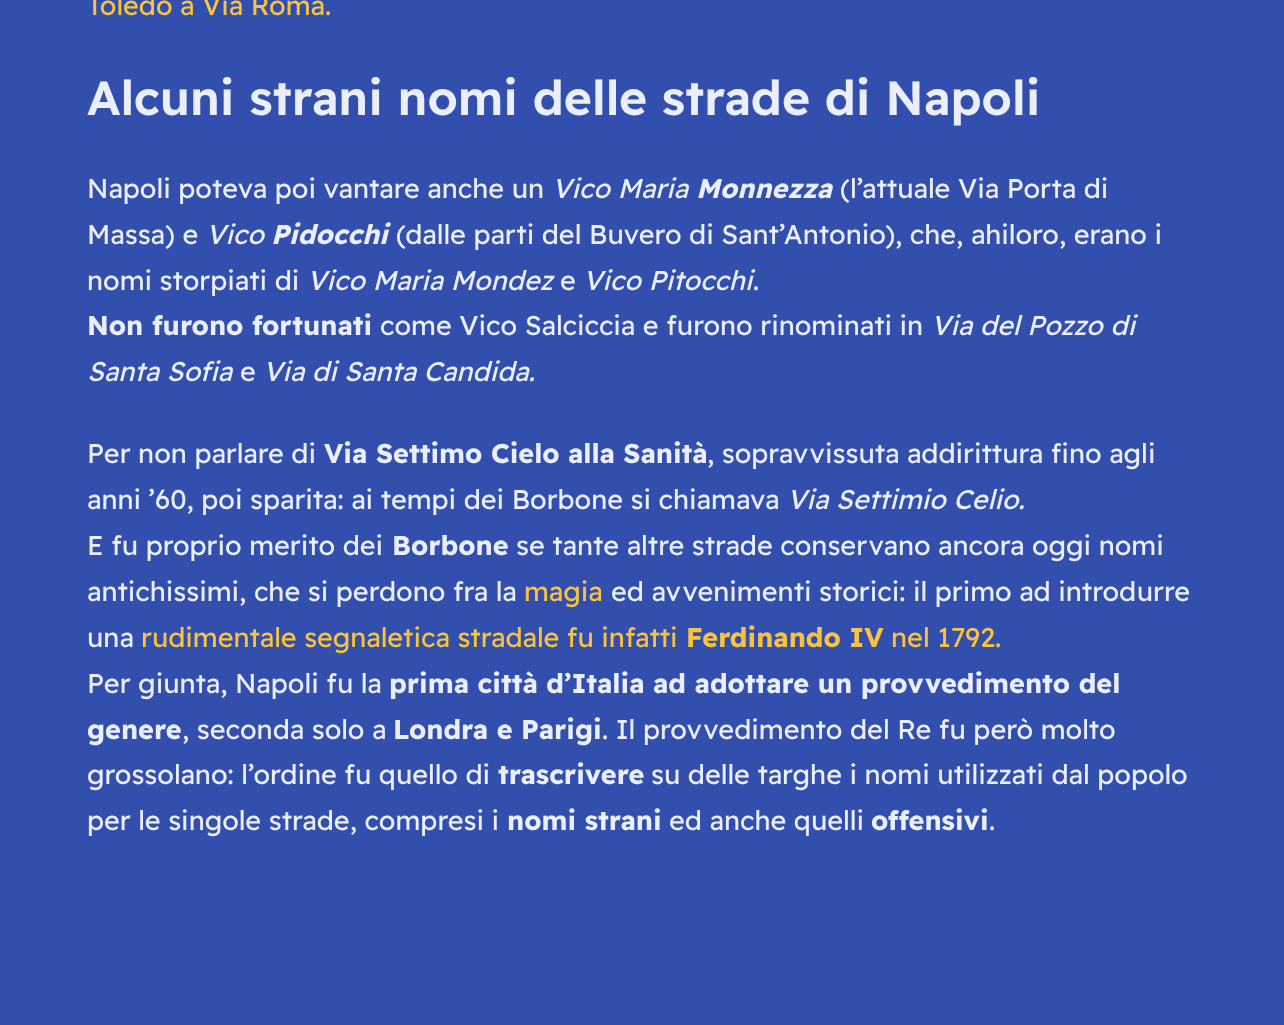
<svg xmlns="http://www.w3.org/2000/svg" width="1284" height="1025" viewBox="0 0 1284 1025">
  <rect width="100%" height="100%" fill="rgb(51,79,174)"/>
  <text x="87" y="15" font-family="Readex Pro" font-size="27" fill="rgb(249,195,62)">Toledo a Via Roma.</text>
  <text x="87" y="115" font-family="Readex Pro" font-size="48" font-weight="600" fill="rgb(234,238,253)">Alcuni strani nomi delle strade di Napoli</text>
  <text x="87" y="198" font-family="Readex Pro" font-size="27" fill="rgb(234,238,253)">Napoli poteva poi vantare anche un</text>
  <text x="552" y="198" font-family="Readex Pro" font-size="27" font-style="italic" fill="rgb(234,238,253)">Vico Maria</text>
  <text x="696" y="198" font-family="Readex Pro" font-size="27" font-weight="bold" font-style="italic" fill="rgb(234,238,253)">Monnezza</text>
  <g font-family="Readex Pro" font-size="27" fill="rgb(234,238,253)">
    <text x="840" y="198">(l’attuale Via Porta di</text>
    <text x="87" y="244">Massa) e</text>
  </g>
  <text x="206" y="244" font-family="Readex Pro" font-size="27" font-style="italic" fill="rgb(234,238,253)">Vico</text>
  <text x="271" y="244" font-family="Readex Pro" font-size="27" font-weight="bold" font-style="italic" fill="rgb(234,238,253)">Pidocchi</text>
  <g font-family="Readex Pro" font-size="27" fill="rgb(234,238,253)">
    <text x="396" y="244">(dalle parti del Buvero di Sant’Antonio), che, ahiloro, erano i</text>
    <text x="87" y="290">nomi storpiati di</text>
  </g>
  <text x="307" y="290" font-family="Readex Pro" font-size="27" font-style="italic" fill="rgb(234,238,253)">Vico Maria Mondez</text>
  <text x="560" y="290" font-family="Readex Pro" font-size="27" fill="rgb(234,238,253)">e</text>
  <text x="583" y="290" font-family="Readex Pro" font-size="27" font-style="italic" fill="rgb(234,238,253)">Vico Pitocchi</text>
  <text x="753" y="290" font-family="Readex Pro" font-size="27" fill="rgb(234,238,253)">.</text>
  <text x="87" y="335" font-family="Readex Pro" font-size="27" font-weight="bold" fill="rgb(234,238,253)">Non furono fortunati</text>
  <text x="380" y="335" font-family="Readex Pro" font-size="27" fill="rgb(234,238,253)">come Vico Salciccia e furono rinominati in</text>
  <g font-family="Readex Pro" font-size="27" font-style="italic" fill="rgb(234,238,253)">
    <text x="931" y="335">Via del Pozzo di</text>
    <text x="87" y="381">Santa Sofia</text>
  </g>
  <text x="240" y="381" font-family="Readex Pro" font-size="27" fill="rgb(234,238,253)">e</text>
  <text x="263" y="381" font-family="Readex Pro" font-size="27" font-style="italic" fill="rgb(234,238,253)">Via di Santa Candida.</text>
  <text x="87" y="463" font-family="Readex Pro" font-size="27" fill="rgb(234,238,253)">Per non parlare di</text>
  <text x="324" y="463" font-family="Readex Pro" font-size="27" font-weight="bold" fill="rgb(234,238,253)">Via Settimo Cielo alla Sanità</text>
  <g font-family="Readex Pro" font-size="27" fill="rgb(234,238,253)">
    <text x="707" y="463">, sopravvissuta addirittura fino agli</text>
    <text x="87" y="509">anni ’60, poi sparita: ai tempi dei Borbone si chiamava</text>
  </g>
  <text x="787" y="509" font-family="Readex Pro" font-size="27" font-style="italic" fill="rgb(234,238,253)">Via Settimio Celio.</text>
  <text x="87" y="555" font-family="Readex Pro" font-size="27" fill="rgb(234,238,253)">E fu proprio merito dei</text>
  <text x="392" y="555" font-family="Readex Pro" font-size="27" font-weight="bold" fill="rgb(234,238,253)">Borbone</text>
  <g font-family="Readex Pro" font-size="27" fill="rgb(234,238,253)">
    <text x="516" y="555">se tante altre strade conservano ancora oggi nomi</text>
    <text x="87" y="601">antichissimi, che si perdono fra la</text>
  </g>
  <text x="524" y="601" font-family="Readex Pro" font-size="27" fill="rgb(249,195,62)">magia</text>
  <g font-family="Readex Pro" font-size="27" fill="rgb(234,238,253)">
    <text x="611" y="601">ed avvenimenti storici: il primo ad introdurre</text>
    <text x="87" y="647">una</text>
  </g>
  <text x="141" y="647" font-family="Readex Pro" font-size="27" fill="rgb(249,195,62)">rudimentale segnaletica stradale fu infatti</text>
  <text x="686" y="647" font-family="Readex Pro" font-size="27" font-weight="bold" fill="rgb(249,195,62)">Ferdinando IV</text>
  <text x="891" y="647" font-family="Readex Pro" font-size="27" fill="rgb(249,195,62)">nel 1792.</text>
  <text x="87" y="693" font-family="Readex Pro" font-size="27" fill="rgb(234,238,253)">Per giunta, Napoli fu la</text>
  <g font-family="Readex Pro" font-size="27" font-weight="bold" fill="rgb(234,238,253)">
    <text x="389" y="693">prima città d’Italia ad adottare un provvedimento del</text>
    <text x="87" y="739">genere</text>
  </g>
  <text x="182" y="739" font-family="Readex Pro" font-size="27" fill="rgb(234,238,253)">, seconda solo a</text>
  <text x="393" y="739" font-family="Readex Pro" font-size="27" font-weight="bold" fill="rgb(234,238,253)">Londra e Parigi</text>
  <g font-family="Readex Pro" font-size="27" fill="rgb(234,238,253)">
    <text x="602" y="739">. Il provvedimento del Re fu però molto</text>
    <text x="87" y="784">grossolano: l’ordine fu quello di</text>
  </g>
  <text x="498" y="784" font-family="Readex Pro" font-size="27" font-weight="bold" fill="rgb(234,238,253)">trascrivere</text>
  <g font-family="Readex Pro" font-size="27" fill="rgb(234,238,253)">
    <text x="651" y="784">su delle targhe i nomi utilizzati dal popolo</text>
    <text x="87" y="830">per le singole strade, compresi i</text>
  </g>
  <text x="507" y="830" font-family="Readex Pro" font-size="27" font-weight="bold" fill="rgb(234,238,253)">nomi strani</text>
  <text x="669" y="830" font-family="Readex Pro" font-size="27" fill="rgb(234,238,253)">ed anche quelli</text>
  <text x="871" y="830" font-family="Readex Pro" font-size="27" font-weight="bold" fill="rgb(234,238,253)">offensivi</text>
  <text x="989" y="830" font-family="Readex Pro" font-size="27" fill="rgb(234,238,253)">.</text>
</svg>
